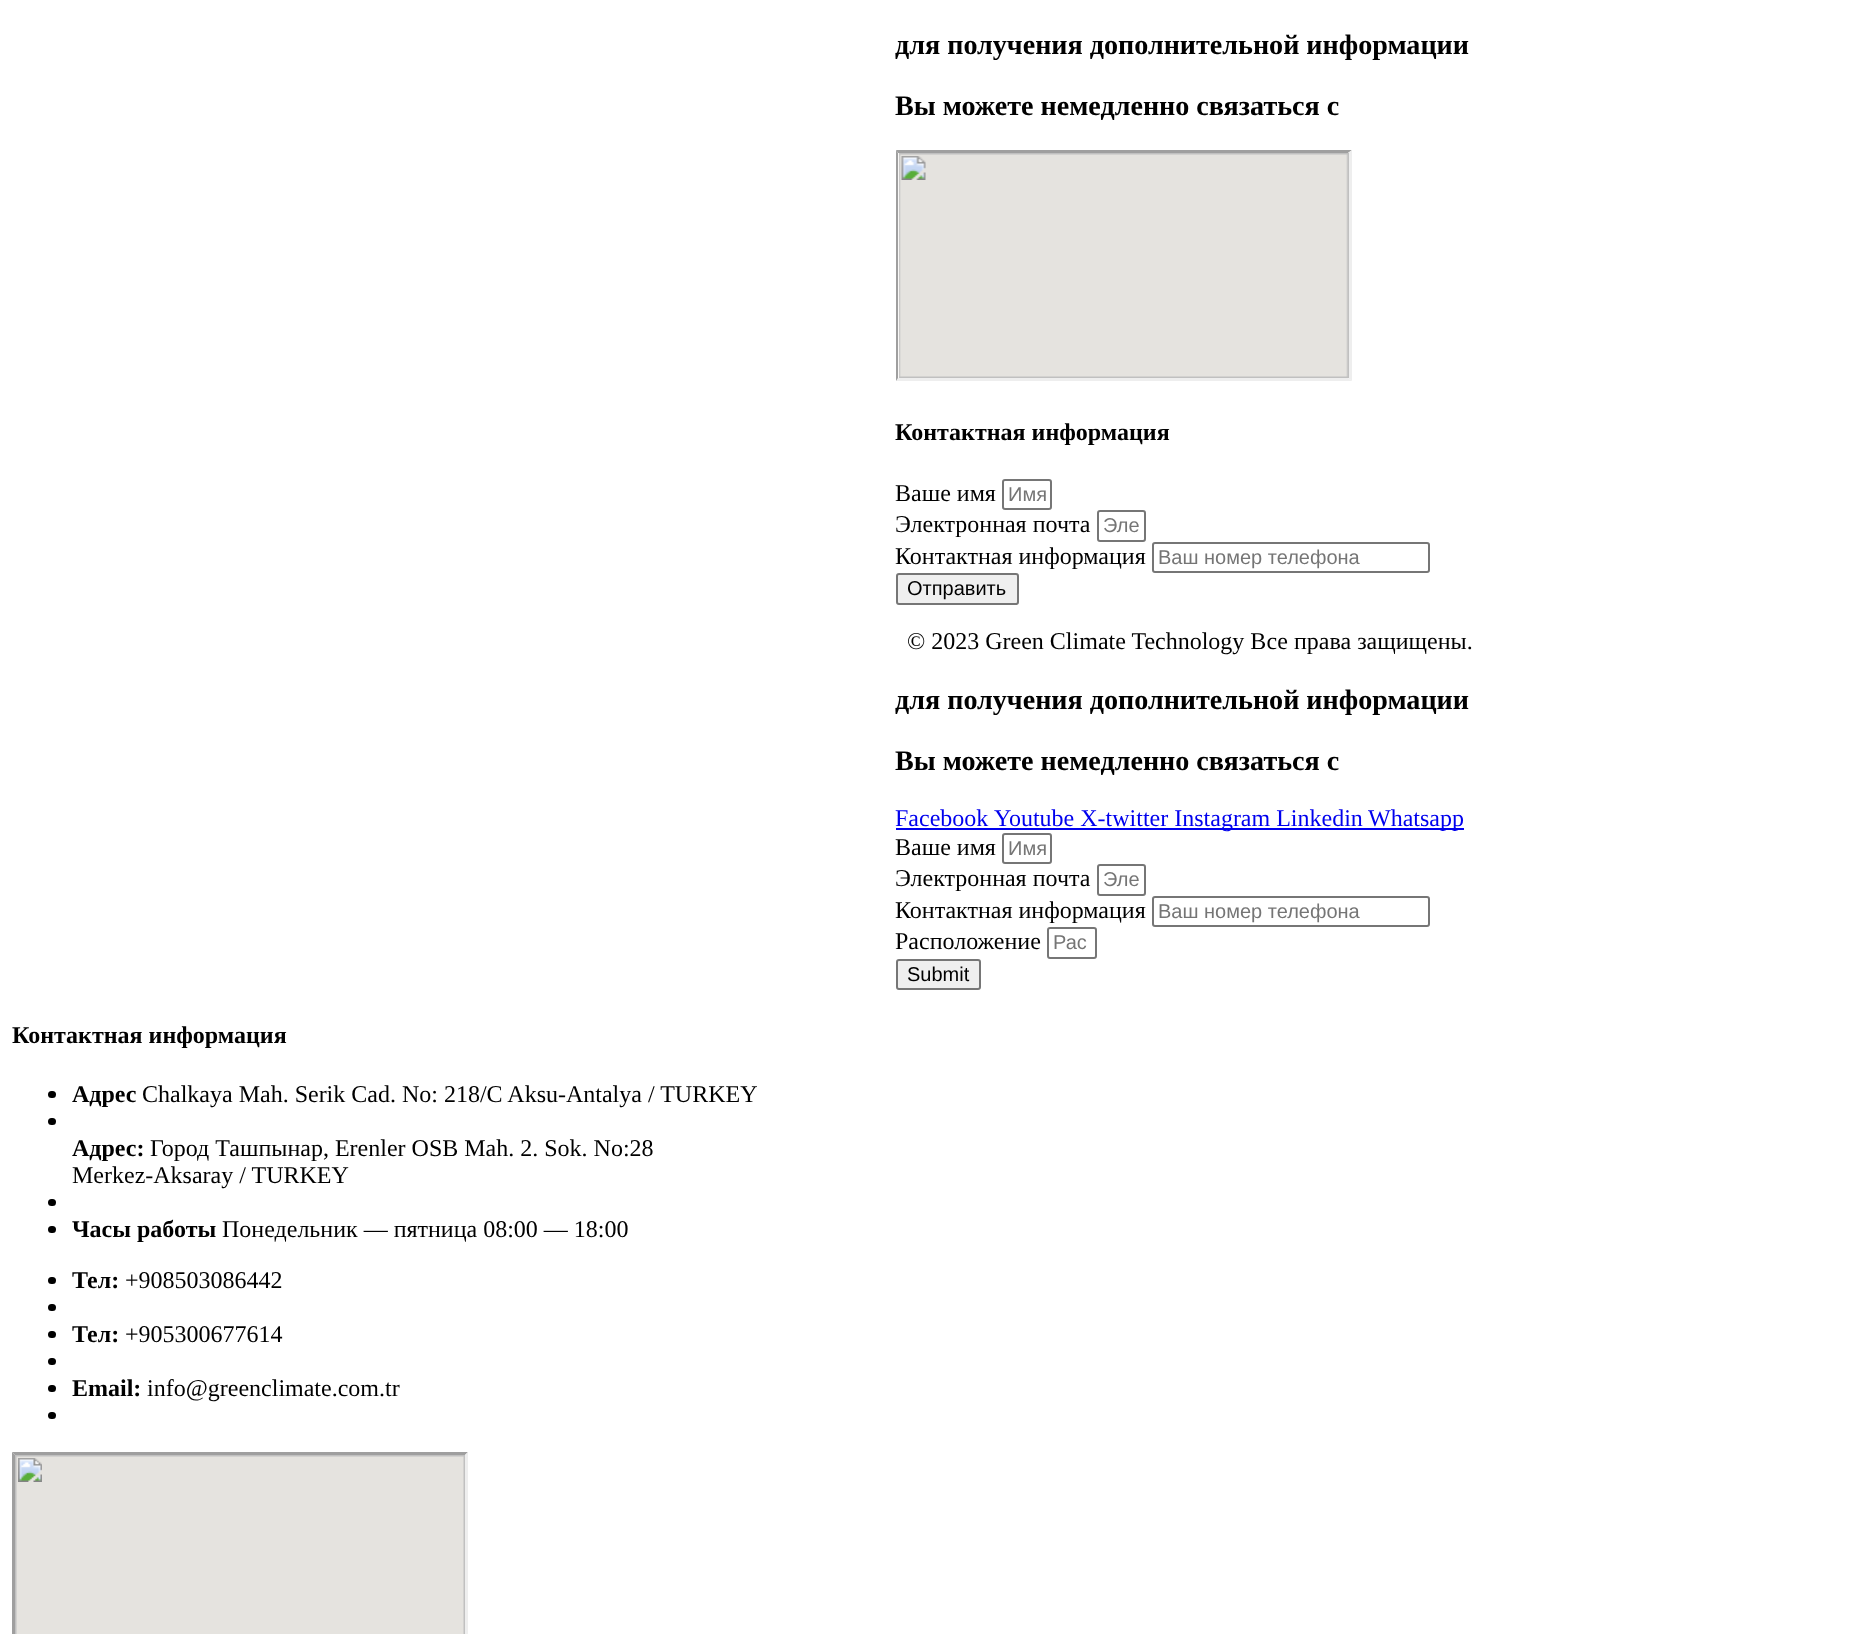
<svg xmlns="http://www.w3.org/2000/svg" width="1864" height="1634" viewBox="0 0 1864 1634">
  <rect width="100%" height="100%" fill="rgb(255,255,255)"/>
  <g font-family="Liberation Serif" font-size="28.1" font-weight="bold" fill="rgb(0,0,0)">
    <text x="895" y="54">для получения дополнительной информации</text>
    <text x="895" y="115">Вы можете немедленно связаться с</text>
  </g>
  <path d="M896 150H1352L1348 153H898Z" fill="rgb(159,159,159)"/>
  <path d="M1352 150V381L1348 378V153Z" fill="rgb(238,238,238)"/>
  <path d="M1352 381H896L898 378H1348Z" fill="rgb(238,238,238)"/>
  <path d="M896 381V150L898 153V378Z" fill="rgb(159,159,159)"/>
  <image x="898" y="153" width="451" height="225" href="pic1.png"/>
  <text x="895" y="440" font-family="Liberation Serif" font-size="24" font-weight="bold" fill="rgb(0,0,0)">Контактная информация</text>
  <text x="895" y="501" font-family="Liberation Serif" font-size="24" fill="rgb(0,0,0)">Ваше имя</text>
  <rect x="1003" y="480" width="48" height="29" rx="2" fill="none" stroke="rgb(118,118,118)" stroke-width="2"/>
  <text x="1008" y="501" font-family="Liberation Sans" font-size="20" fill="rgb(117,117,117)">Имя</text>
  <text x="895" y="532" font-family="Liberation Serif" font-size="24" fill="rgb(0,0,0)">Электронная почта</text>
  <rect x="1098" y="511" width="47" height="30" rx="2" fill="none" stroke="rgb(118,118,118)" stroke-width="2"/>
  <text x="1103" y="532" font-family="Liberation Sans" font-size="20" fill="rgb(117,117,117)">Эле</text>
  <text x="895" y="564" font-family="Liberation Serif" font-size="24" fill="rgb(0,0,0)">Контактная информация</text>
  <rect x="1153" y="543" width="276" height="29" rx="2" fill="none" stroke="rgb(118,118,118)" stroke-width="2"/>
  <text x="1158" y="564" font-family="Liberation Sans" font-size="20" fill="rgb(117,117,117)">Ваш номер телефона</text>
  <rect x="897" y="574" width="121" height="30" rx="2" fill="rgb(239,239,239)" stroke="rgb(118,118,118)" stroke-width="2"/>
  <text x="907" y="595" font-family="Liberation Sans" font-size="20" fill="rgb(0,0,0)">Отправить</text>
  <text x="907" y="649" font-family="Liberation Serif" font-size="24" fill="rgb(0,0,0)">© 2023 Green Climate Technology Все права защищены.</text>
  <g font-family="Liberation Serif" font-size="28.1" font-weight="bold" fill="rgb(0,0,0)">
    <text x="895" y="709">для получения дополнительной информации</text>
    <text x="895" y="770">Вы можете немедленно связаться с</text>
  </g>
  <text x="895" y="826" font-family="Liberation Serif" font-size="24" fill="rgb(0,0,238)">Facebook</text>
  <rect x="896" y="828" width="466" height="2" fill="rgb(0,0,238)"/>
  <text x="994" y="826" font-family="Liberation Serif" font-size="24" fill="rgb(0,0,238)">Youtube X-twitter Instagram Linkedin</text>
  <rect x="1362" y="828" width="102" height="2" fill="rgb(0,0,238)"/>
  <text x="1368" y="826" font-family="Liberation Serif" font-size="24" fill="rgb(0,0,238)">Whatsapp</text>
  <text x="895" y="855" font-family="Liberation Serif" font-size="24" fill="rgb(0,0,0)">Ваше имя</text>
  <rect x="1003" y="834" width="48" height="29" rx="2" fill="none" stroke="rgb(118,118,118)" stroke-width="2"/>
  <text x="1008" y="855" font-family="Liberation Sans" font-size="20" fill="rgb(117,117,117)">Имя</text>
  <text x="895" y="886" font-family="Liberation Serif" font-size="24" fill="rgb(0,0,0)">Электронная почта</text>
  <rect x="1098" y="865" width="47" height="30" rx="2" fill="none" stroke="rgb(118,118,118)" stroke-width="2"/>
  <text x="1103" y="886" font-family="Liberation Sans" font-size="20" fill="rgb(117,117,117)">Эле</text>
  <text x="895" y="918" font-family="Liberation Serif" font-size="24" fill="rgb(0,0,0)">Контактная информация</text>
  <rect x="1153" y="897" width="276" height="29" rx="2" fill="none" stroke="rgb(118,118,118)" stroke-width="2"/>
  <text x="1158" y="918" font-family="Liberation Sans" font-size="20" fill="rgb(117,117,117)">Ваш номер телефона</text>
  <text x="895" y="949" font-family="Liberation Serif" font-size="24" fill="rgb(0,0,0)">Расположение</text>
  <rect x="1048" y="928" width="48" height="30" rx="2" fill="none" stroke="rgb(118,118,118)" stroke-width="2"/>
  <text x="1053" y="949" font-family="Liberation Sans" font-size="20" fill="rgb(117,117,117)">Рас</text>
  <rect x="897" y="960" width="83" height="29" rx="2" fill="rgb(239,239,239)" stroke="rgb(118,118,118)" stroke-width="2"/>
  <text x="907" y="981" font-family="Liberation Sans" font-size="20" fill="rgb(0,0,0)">Submit</text>
  <text x="12" y="1043" font-family="Liberation Serif" font-size="24" font-weight="bold" fill="rgb(0,0,0)">Контактная информация</text>
  <rect x="48" y="1091" width="8" height="7" rx="3.5" fill="rgb(0,0,0)"/>
  <text x="72" y="1102" font-family="Liberation Serif" font-size="24" font-weight="bold" fill="rgb(0,0,0)">Адрес</text>
  <text x="142" y="1102" font-family="Liberation Serif" font-size="24" fill="rgb(0,0,0)">Chalkaya Mah. Serik Cad. No: 218/C Aksu-Antalya / TURKEY</text>
  <rect x="48" y="1118" width="8" height="7" rx="3.5" fill="rgb(0,0,0)"/>
  <text x="72" y="1156" font-family="Liberation Serif" font-size="24" font-weight="bold" fill="rgb(0,0,0)">Адрес:</text>
  <g font-family="Liberation Serif" font-size="24" fill="rgb(0,0,0)">
    <text x="150" y="1156">Город Ташпынар, Erenler OSB Mah. 2. Sok. No:28</text>
    <text x="72" y="1183">Merkez-Aksaray / TURKEY</text>
  </g>
  <rect x="48" y="1199" width="8" height="7" rx="3.5" fill="rgb(0,0,0)"/>
  <rect x="48" y="1226" width="8" height="7" rx="3.5" fill="rgb(0,0,0)"/>
  <text x="72" y="1237" font-family="Liberation Serif" font-size="24" font-weight="bold" fill="rgb(0,0,0)">Часы работы</text>
  <text x="222" y="1237" font-family="Liberation Serif" font-size="24" fill="rgb(0,0,0)">Понедельник — пятница 08:00 — 18:00</text>
  <rect x="48" y="1277" width="8" height="7" rx="3.5" fill="rgb(0,0,0)"/>
  <text x="72" y="1288" font-family="Liberation Serif" font-size="24" font-weight="bold" fill="rgb(0,0,0)">Тел:</text>
  <text x="125" y="1288" font-family="Liberation Serif" font-size="24" fill="rgb(0,0,0)">+908503086442</text>
  <rect x="48" y="1304" width="8" height="7" rx="3.5" fill="rgb(0,0,0)"/>
  <rect x="48" y="1331" width="8" height="7" rx="3.5" fill="rgb(0,0,0)"/>
  <text x="72" y="1342" font-family="Liberation Serif" font-size="24" font-weight="bold" fill="rgb(0,0,0)">Тел:</text>
  <text x="125" y="1342" font-family="Liberation Serif" font-size="24" fill="rgb(0,0,0)">+905300677614</text>
  <rect x="48" y="1358" width="8" height="7" rx="3.5" fill="rgb(0,0,0)"/>
  <rect x="48" y="1385" width="8" height="7" rx="3.5" fill="rgb(0,0,0)"/>
  <text x="72" y="1396" font-family="Liberation Serif" font-size="24" font-weight="bold" fill="rgb(0,0,0)">Email:</text>
  <text x="147" y="1396" font-family="Liberation Serif" font-size="24" fill="rgb(0,0,0)">info@greenclimate.com.tr</text>
  <rect x="48" y="1412" width="8" height="7" rx="3.5" fill="rgb(0,0,0)"/>
  <path d="M12 1452H468L465 1455H15Z" fill="rgb(159,159,159)"/>
  <path d="M12 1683V1452L15 1455V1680Z" fill="rgb(159,159,159)"/>
  <image x="15" y="1455" width="450" height="179" href="pic2.png"/>
  <path d="M468 1452V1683L465 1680V1455Z" fill="rgb(238,238,238)"/>
</svg>
